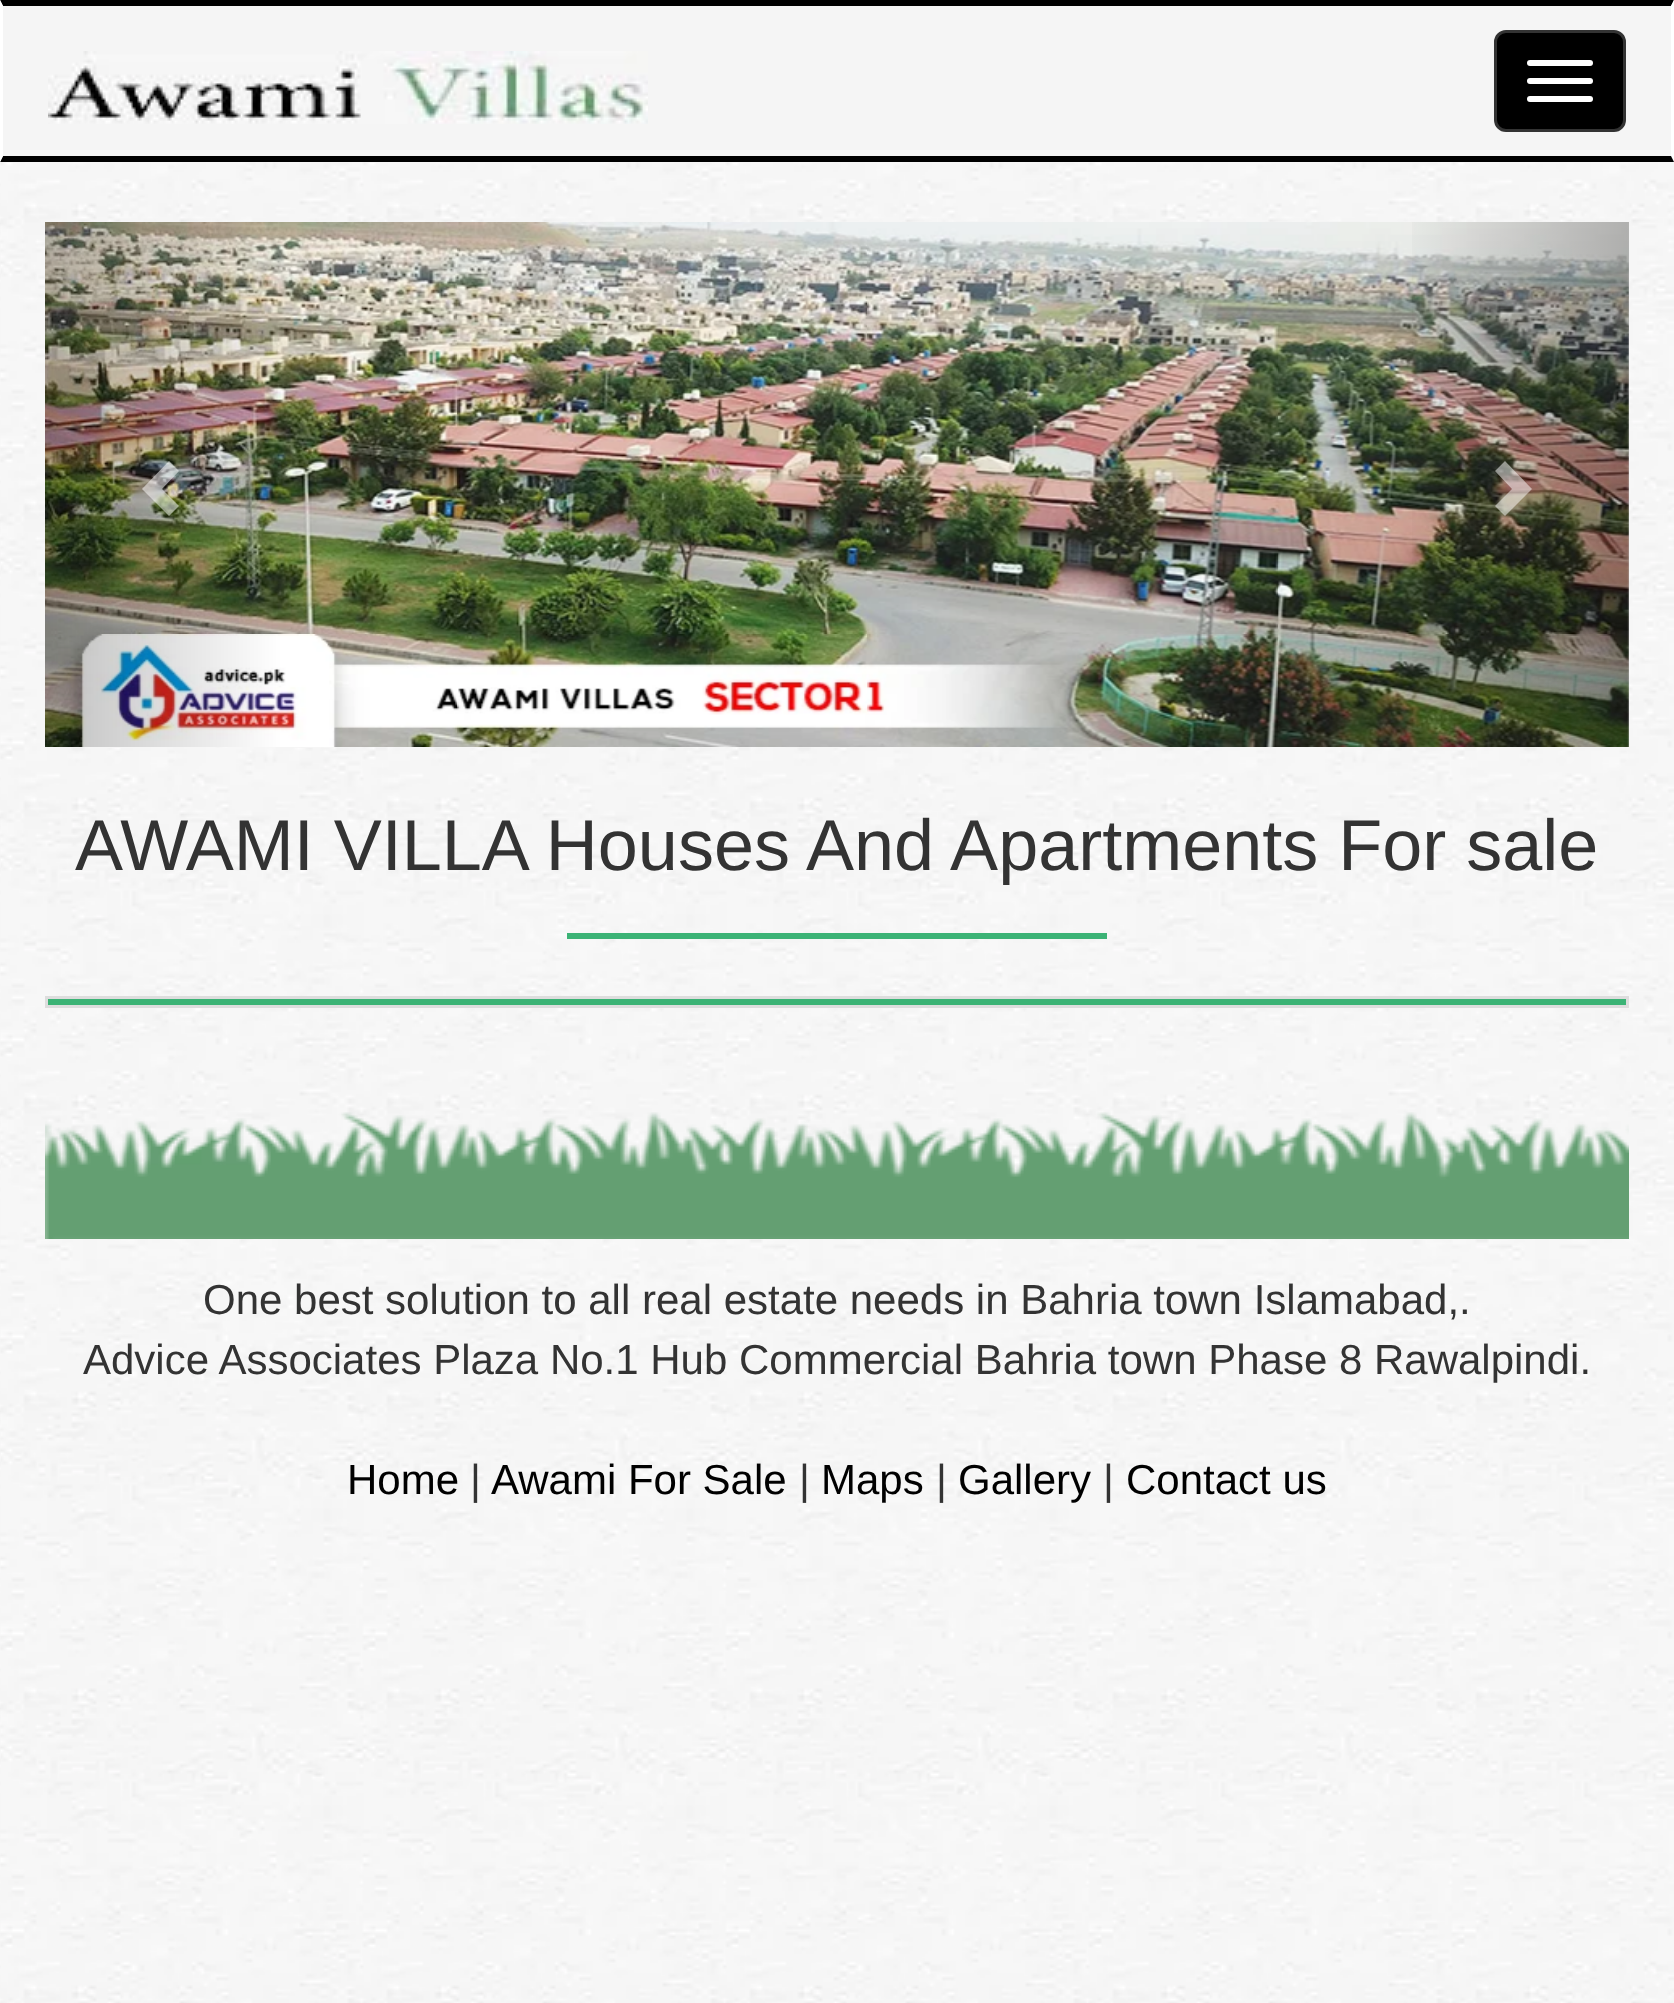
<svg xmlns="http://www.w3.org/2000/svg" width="1674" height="2003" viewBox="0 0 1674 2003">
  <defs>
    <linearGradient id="g1" gradientUnits="userSpaceOnUse" x1="1392" y1="485" x2="1629" y2="485"><stop offset="0" stop-color="rgb(0,0,0)" stop-opacity="0"/><stop offset="1" stop-color="rgb(0,0,0)" stop-opacity="0.25"/></linearGradient>
  </defs>
  <rect width="100%" height="100%" fill="rgb(255,255,255)"/>
  <image x="0" y="0" width="1674" height="2003" href="pic1.png"/>
  <rect x="3" y="6" width="1668" height="150" fill="rgb(245,245,245)"/>
  <path d="M0 0H1674L1671 6H3Z" fill="rgb(0,0,0)"/>
  <path d="M1674 0V162L1671 156V6Z" fill="rgb(255,255,255)"/>
  <path d="M1674 162H0L3 156H1671Z" fill="rgb(0,0,0)"/>
  <path d="M0 162V0L3 6V156Z" fill="rgb(255,255,255)"/>
  <image x="48" y="51" width="600" height="73" href="pic2.png"/>
  <rect x="1495.5" y="31.5" width="129" height="99" rx="10.5" fill="rgb(0,0,0)" stroke="rgb(51,51,51)" stroke-width="3"/>
  <rect x="1527" y="60" width="66" height="6" rx="3" fill="rgb(255,255,255)"/>
  <rect x="1527" y="78" width="66" height="6" rx="3" fill="rgb(255,255,255)"/>
  <rect x="1527" y="96" width="66" height="6" rx="3" fill="rgb(255,255,255)"/>
  <image x="45" y="222" width="1584" height="525" href="pic3.png"/>
  <path d="M179 471L162 489L179 506L169 516L142 489L169 461Z" fill="rgba(255,255,255,0.5)"/>
  <rect x="1412" y="222" width="217" height="525" fill="url(#g1)"/>
  <path d="M1532 489L1505 516L1495 506L1512 489L1495 471L1505 461Z" fill="rgba(255,255,255,0.5)"/>
  <text x="75" y="870" font-family="Liberation Sans" font-size="72" fill="rgb(51,51,51)">AWAMI VILLA Houses And Apartments For sale</text>
  <rect x="567" y="933" width="540" height="6" fill="rgb(60,179,118)"/>
  <rect x="46.5" y="997.5" width="1581" height="9" fill="rgb(59,179,117)" stroke="rgb(221,221,221)" stroke-width="3"/>
  <image x="45" y="1112" width="1584" height="127" href="pic4.png"/>
  <g font-family="Liberation Sans" font-size="42" fill="rgb(51,51,51)">
    <text x="203" y="1314">One best solution to all real estate needs in Bahria town Islamabad,.</text>
    <text x="83" y="1374">Advice Associates Plaza No.1 Hub Commercial Bahria town Phase 8 Rawalpindi.</text>
  </g>
  <text x="347" y="1494" font-family="Liberation Sans" font-size="42" fill="rgb(0,0,0)">Home</text>
  <text x="470" y="1494" font-family="Liberation Sans" font-size="42" fill="rgb(51,51,51)">|</text>
  <text x="491" y="1494" font-family="Liberation Sans" font-size="42" fill="rgb(0,0,0)">Awami For Sale</text>
  <text x="799" y="1494" font-family="Liberation Sans" font-size="42" fill="rgb(51,51,51)">|</text>
  <text x="821" y="1494" font-family="Liberation Sans" font-size="42" fill="rgb(0,0,0)">Maps</text>
  <text x="936" y="1494" font-family="Liberation Sans" font-size="42" fill="rgb(51,51,51)">|</text>
  <text x="958" y="1494" font-family="Liberation Sans" font-size="42" fill="rgb(0,0,0)">Gallery</text>
  <text x="1103" y="1494" font-family="Liberation Sans" font-size="42" fill="rgb(51,51,51)">|</text>
  <text x="1126" y="1494" font-family="Liberation Sans" font-size="42" fill="rgb(0,0,0)">Contact us</text>
</svg>
